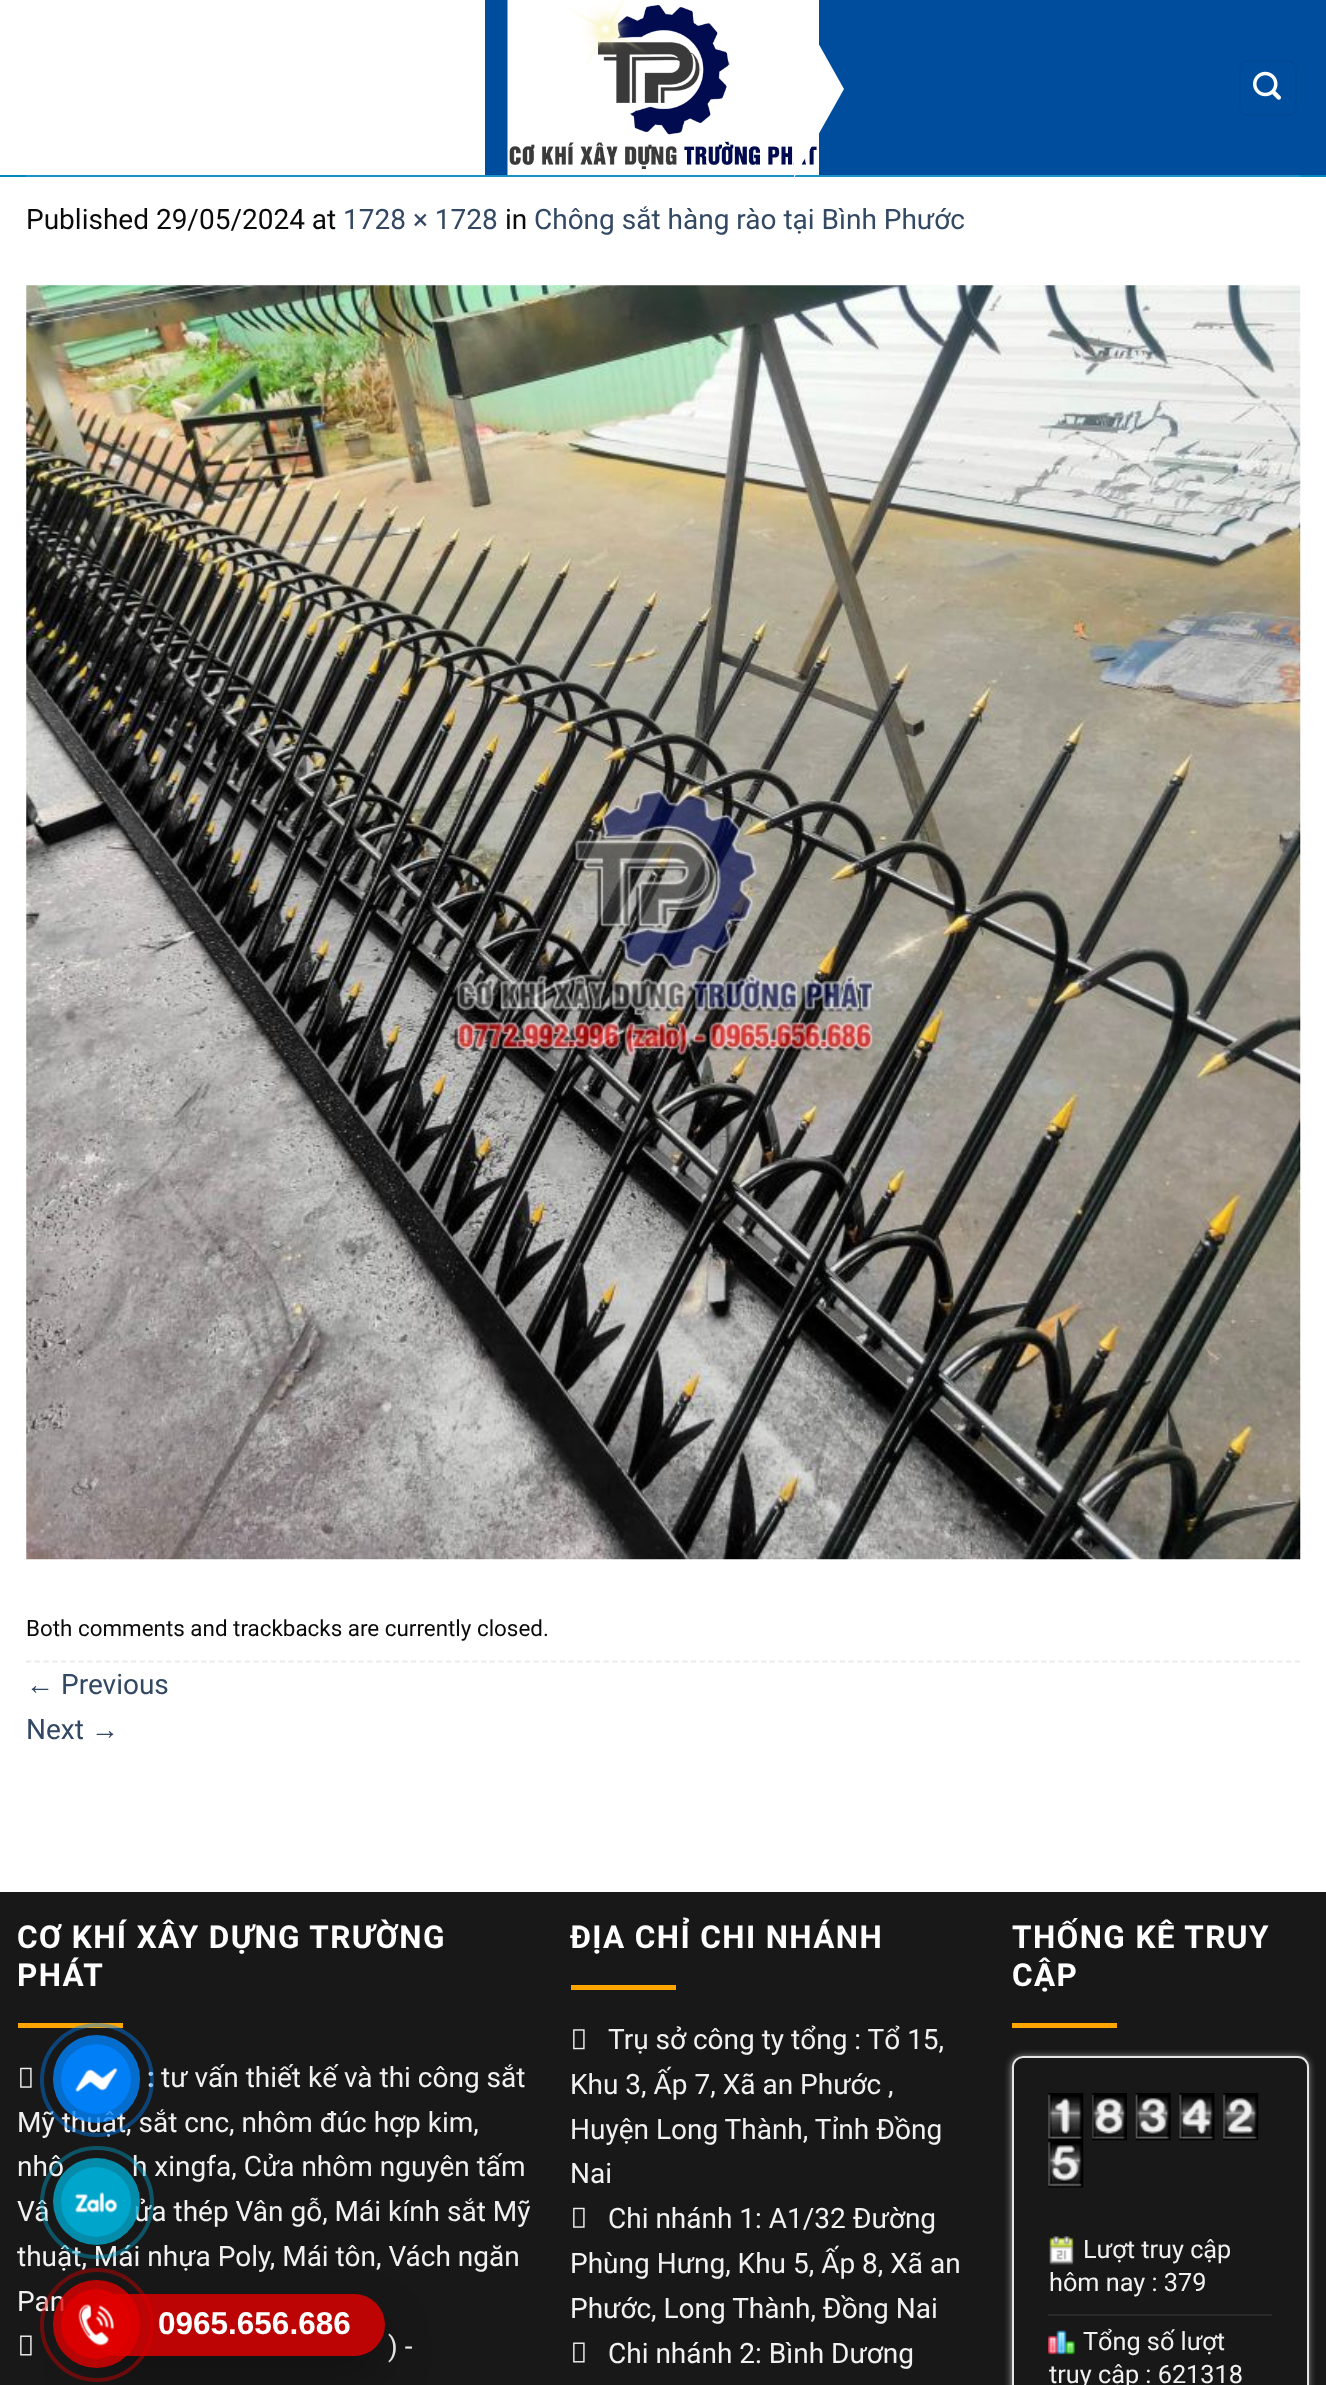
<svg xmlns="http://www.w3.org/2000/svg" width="1326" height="2385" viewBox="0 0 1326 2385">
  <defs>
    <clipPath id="clip1"><path d="M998 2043H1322V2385H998ZM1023 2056H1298C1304 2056 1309 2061 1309 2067V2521C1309 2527 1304 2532 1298 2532H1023C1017 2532 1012 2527 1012 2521V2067C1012 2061 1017 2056 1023 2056Z" clip-rule="evenodd"/></clipPath>
    <clipPath id="clip2"><path d="M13 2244H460V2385H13ZM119 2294H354C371 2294 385 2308 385 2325C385 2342 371 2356 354 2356H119C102 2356 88 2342 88 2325C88 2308 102 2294 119 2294Z" clip-rule="evenodd"/></clipPath>
  </defs>
  <rect width="100%" height="100%" fill="rgb(255,255,255)"/>
  <rect x="0" y="175" width="1326" height="2" fill="rgb(0,134,193)"/>
  <rect x="485" y="0" width="841" height="175" fill="rgb(0,77,157)"/>
  <image x="507" y="0" width="312" height="175" href="pic1.png"/>
  <image x="569" y="0" width="77" height="67" href="pic2.png"/>
  <path d="M794 178V0L844 89Z" fill="rgb(255,255,255)"/>
  <rect x="1240" y="61" width="56" height="54" rx="8" fill="none" stroke="rgb(0,73,149)" stroke-width="2"/>
  <image x="1253" y="71" width="28" height="29" href="pic3.png"/>
  <rect x="26" y="175" width="1274" height="2" fill="rgba(255,255,255,0.1)"/>
  <text x="26" y="229" font-family="Roboto" font-size="28" fill="rgb(10,10,10)">Published 29/05/2024 at</text>
  <text x="343" y="229" font-family="Roboto" font-size="28" fill="rgb(51,72,98)">1728 × 1728</text>
  <text x="505" y="229" font-family="Roboto" font-size="28" fill="rgb(10,10,10)">in</text>
  <text x="534" y="229" font-family="Roboto" font-size="28" fill="rgb(51,72,98)">Chông sắt hàng rào tại Bình Phước</text>
  <image x="26" y="285" width="1275" height="1275" href="pic4.png"/>
  <path d="M26 1661.5H1300" fill="none" stroke="rgb(236,236,236)" stroke-width="1.8" stroke-dasharray="5.25 3.5"/>
  <text x="26" y="1636" font-family="Roboto" font-size="22.4" fill="rgb(10,10,10)">Both comments and trackbacks are currently closed.</text>
  <text x="26" y="1694" font-family="Liberation Sans" font-size="28" fill="rgb(51,72,98)">←</text>
  <g font-family="Roboto" font-size="28" fill="rgb(51,72,98)">
    <text x="61" y="1694">Previous</text>
    <text x="26" y="1739">Next</text>
  </g>
  <text x="91" y="1739" font-family="Liberation Sans" font-size="28" fill="rgb(51,72,98)">→</text>
  <rect x="0" y="1892" width="1326" height="493" fill="rgb(24,24,24)"/>
  <g font-family="Roboto" font-size="31.5" font-weight="bold" letter-spacing="1.4" fill="rgb(255,255,255)">
    <text>
      <tspan x="17" y="1948">CƠ KHÍ XÂY DỰNG TRƯỜNG</tspan>
      <tspan x="17" y="1986">PHÁT</tspan>
    </text>
  </g>
  <rect x="18" y="2023" width="105" height="5" fill="rgb(255,165,0)"/>
  <image x="20" y="2067" width="12" height="21" href="pic5.png"/>
  <text x="147" y="2087" font-family="Roboto" font-size="28" font-weight="bold" fill="rgb(241,241,241)">:</text>
  <g font-family="Roboto" font-size="28" fill="rgb(241,241,241)">
    <text x="161" y="2087">tư vấn thiết kế và thi công sắt</text>
    <text>
      <tspan x="17" y="2132">Mỹ thuật, sắt cnc, nhôm đúc hợp kim,</tspan>
      <tspan x="17" y="2176">nhô</tspan>
    </text>
    <text x="132" y="2176">h xingfa, Cửa nhôm nguyên tấm</text>
    <text x="17" y="2221">Vâ</text>
    <text x="134" y="2221">ửa thép Vân gỗ, Mái kính sắt Mỹ</text>
    <text>
      <tspan x="17" y="2266">thuật, Mái nhựa Poly, Mái tôn, Vách ngăn</tspan>
      <tspan x="17" y="2311">Pan</tspan>
    </text>
  </g>
  <image x="20" y="2335" width="12" height="21" href="pic6.png"/>
  <text x="388" y="2356" font-family="Roboto" font-size="28" fill="rgb(241,241,241)">) -</text>
  <text x="570" y="1948" font-family="Roboto" font-size="31.5" font-weight="bold" letter-spacing="1.4" fill="rgb(255,255,255)">ĐỊA CHỈ CHI NHÁNH</text>
  <rect x="571" y="1985" width="105" height="5" fill="rgb(255,165,0)"/>
  <image x="573" y="2029" width="12" height="21" href="pic7.png"/>
  <g font-family="Roboto" font-size="28" fill="rgb(241,241,241)">
    <text x="608" y="2049">Trụ sở công ty tổng : Tổ 15,</text>
    <text>
      <tspan x="570" y="2094">Khu 3, Ấp 7, Xã an Phước ,</tspan>
      <tspan x="570" y="2139">Huyện Long Thành, Tỉnh Đồng</tspan>
      <tspan x="570" y="2183">Nai</tspan>
    </text>
  </g>
  <image x="573" y="2207" width="12" height="21" href="pic5.png"/>
  <g font-family="Roboto" font-size="28" fill="rgb(241,241,241)">
    <text x="608" y="2228">Chi nhánh 1: A1/32 Đường</text>
    <text>
      <tspan x="570" y="2273">Phùng Hưng, Khu 5, Ấp 8, Xã an</tspan>
      <tspan x="570" y="2318">Phước, Long Thành, Đồng Nai</tspan>
    </text>
  </g>
  <image x="573" y="2342" width="12" height="21" href="pic6.png"/>
  <text x="608" y="2363" font-family="Roboto" font-size="28" fill="rgb(241,241,241)">Chi nhánh 2: Bình Dương</text>
  <g font-family="Roboto" font-size="31.5" font-weight="bold" letter-spacing="1.4" fill="rgb(255,255,255)">
    <text>
      <tspan x="1012" y="1948">THỐNG KÊ TRUY</tspan>
      <tspan x="1012" y="1986">CẬP</tspan>
    </text>
  </g>
  <rect x="1012" y="2023" width="105" height="5" fill="rgb(255,165,0)"/>
  <g clip-path="url(#clip1)">
    <rect x="1013" y="2058" width="294" height="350" rx="9" fill="rgb(212,212,212)" filter="blur(4.5px)"/>
  </g>
  <rect x="1013" y="2057" width="295" height="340" rx="10" fill="none" stroke="rgb(230,230,230)" stroke-width="2"/>
  <image x="1048" y="2093" width="36" height="48" href="pic8.png"/>
  <image x="1092" y="2093" width="35" height="48" href="pic9.png"/>
  <image x="1135" y="2093" width="36" height="48" href="pic10.png"/>
  <image x="1179" y="2093" width="36" height="48" href="pic11.png"/>
  <image x="1223" y="2093" width="36" height="48" href="pic12.png"/>
  <image x="1048" y="2140" width="36" height="48" href="pic13.png"/>
  <rect x="1048" y="2314" width="224" height="2" fill="rgb(42,42,42)"/>
  <image x="1049" y="2236" width="25" height="29" href="pic14.png"/>
  <g font-family="Roboto" font-size="25.25" fill="rgb(241,241,241)">
    <text x="1083" y="2258">Lượt truy cập</text>
    <text x="1049" y="2291">hôm nay : 379</text>
  </g>
  <image x="1048" y="2330" width="27" height="25" href="pic15.png"/>
  <g font-family="Roboto" font-size="25.25" fill="rgb(241,241,241)">
    <text x="1083" y="2350">Tổng số lượt</text>
    <text x="1049" y="2383">truy cập : 621318</text>
  </g>
  <circle cx="97" cy="2080" r="55" fill="none" stroke="rgba(0,132,255,0.42)" stroke-width="4"/>
  <rect x="53" y="2035" width="87" height="88" rx="43.5" fill="rgba(0,132,255,0.79)"/>
  <circle cx="96" cy="2079" r="35" fill="rgba(0,132,255,0.81)"/>
  <image x="75" y="2068" width="43" height="24" href="pic16.png"/>
  <rect x="42" y="2148" width="110" height="109" rx="54.5" fill="none" stroke="rgba(0,171,211,0.42)" stroke-width="4"/>
  <circle cx="96.5" cy="2201.5" r="43.5" fill="rgba(0,171,211,0.79)"/>
  <circle cx="96" cy="2202" r="35" fill="rgba(0,171,211,0.81)"/>
  <image x="74" y="2192" width="44" height="21" href="pic17.png"/>
  <g clip-path="url(#clip2)">
    <rect x="88" y="2319" width="297" height="61" rx="30.5" fill="rgba(0,0,0,0.25)" filter="blur(24.5px)"/>
  </g>
  <rect x="88" y="2294" width="297" height="62" rx="31" fill="rgba(227,0,0,0.81)"/>
  <circle cx="97" cy="2325" r="55" fill="none" stroke="rgba(227,0,0,0.42)" stroke-width="4"/>
  <rect x="53" y="2280" width="87" height="88" rx="43.5" fill="rgba(227,0,0,0.79)"/>
  <circle cx="96" cy="2324" r="35" fill="rgba(227,0,0,0.81)"/>
  <image x="78" y="2304" width="36" height="42" href="pic18.png"/>
  <text x="158" y="2334" font-family="Liberation Sans" font-size="31.5" font-weight="bold" fill="rgb(255,255,255)">0965.656.686</text>
</svg>
